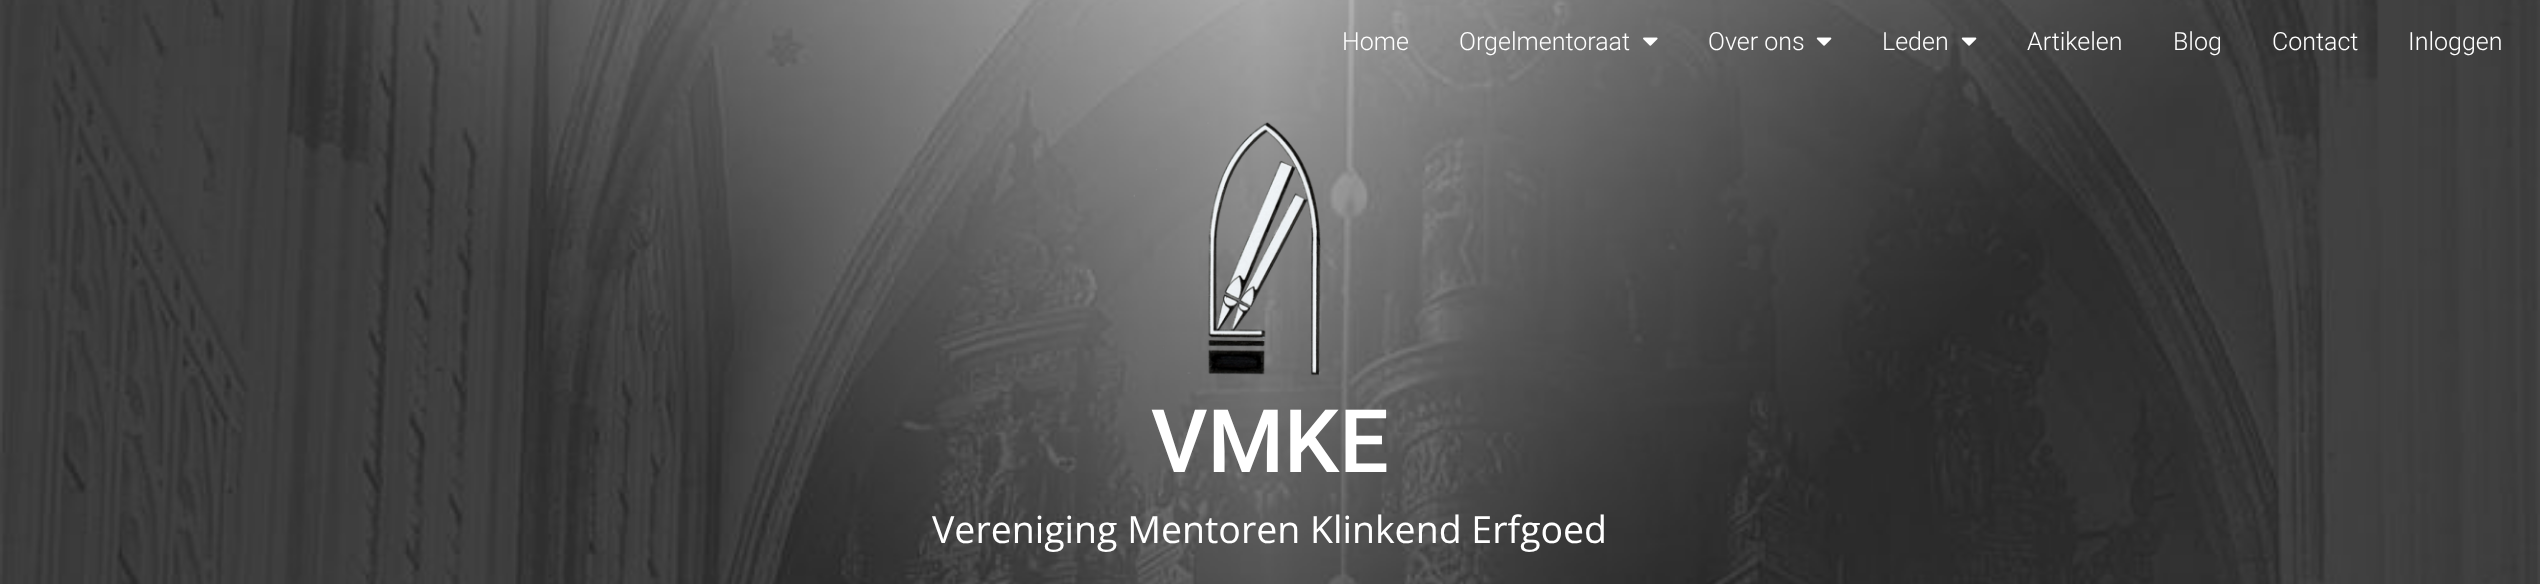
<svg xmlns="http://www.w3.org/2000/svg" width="2540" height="584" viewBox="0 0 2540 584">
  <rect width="100%" height="100%" fill="rgb(255,255,255)"/>
  <image x="0" y="0" width="2540" height="584" href="pic1.png"/>
  <g font-family="Roboto" font-size="25" font-weight="300" fill="rgb(255,255,255)">
    <text x="1342" y="50">Home</text>
    <text x="1459" y="50">Orgelmentoraat</text>
  </g>
  <image x="1643" y="37" width="15" height="9" href="pic2.png"/>
  <text x="1708" y="50" font-family="Roboto" font-size="25" font-weight="300" fill="rgb(255,255,255)">Over ons</text>
  <image x="1816" y="37" width="16" height="9" href="pic3.png"/>
  <text x="1882" y="50" font-family="Roboto" font-size="25" font-weight="300" fill="rgb(255,255,255)">Leden</text>
  <image x="1961" y="37" width="16" height="9" href="pic4.png"/>
  <g font-family="Roboto" font-size="25" font-weight="300" fill="rgb(255,255,255)">
    <text x="2027" y="50">Artikelen</text>
    <text x="2173" y="50">Blog</text>
    <text x="2272" y="50">Contact</text>
    <text x="2408" y="50">Inloggen</text>
  </g>
  <image x="1133" y="122" width="188" height="256" href="pic5.png"/>
  <text x="1151" y="472" font-family="Roboto" font-size="87.5" font-weight="500" fill="rgb(255,255,255)">VMKE</text>
  <text x="932" y="543" font-family="Open Sans" font-size="37.5" fill="rgb(255,255,255)">Vereniging Mentoren Klinkend Erfgoed</text>
</svg>
